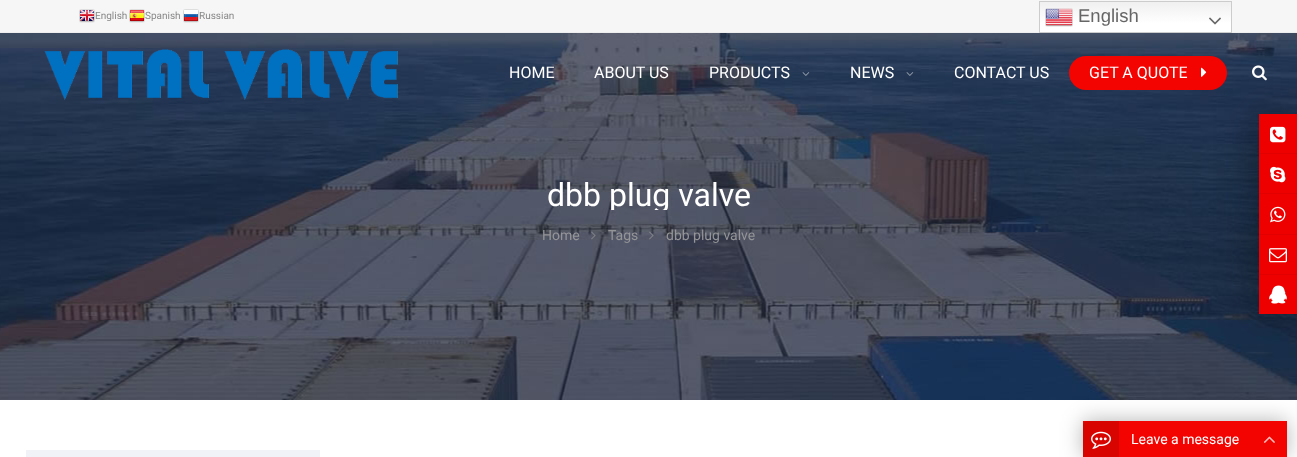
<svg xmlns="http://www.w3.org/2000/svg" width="1297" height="457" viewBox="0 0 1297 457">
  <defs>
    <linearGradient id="g1" gradientUnits="userSpaceOnUse" x1="1136" y1="1" x2="1136" y2="33"><stop offset="0" stop-color="rgb(239,239,239)"/><stop offset="0.7" stop-color="rgb(255,255,255)"/></linearGradient>
    <clipPath id="clip1"><rect x="399" y="180" width="499" height="30"/></clipPath>
  </defs>
  <rect width="100%" height="100%" fill="rgb(255,255,255)"/>
  <rect x="0" y="0" width="1297" height="32" fill="rgb(246,246,246)"/>
  <rect x="1040" y="2" width="191" height="30" fill="url(#g1)"/>
  <rect x="0" y="32" width="1297" height="1" fill="rgb(238,238,238)"/>
  <rect x="1039.5" y="1.5" width="192" height="31" fill="none" stroke="rgb(204,204,204)"/>
  <image x="1045" y="8" width="28" height="19" href="pic1.png"/>
  <text x="1078" y="22" font-family="Liberation Sans" font-size="18.5" fill="rgb(102,102,102)">English</text>
  <image x="1209" y="17" width="12" height="8" href="pic2.png"/>
  <image x="0" y="33" width="1297" height="367" href="pic3.png"/>
  <image x="79" y="9" width="16" height="14" href="pic4.png"/>
  <text x="95" y="19" font-family="Roboto" font-size="10" fill="rgb(136,136,136)">English</text>
  <image x="129" y="9" width="16" height="14" href="pic5.png"/>
  <text x="145" y="19" font-family="Roboto" font-size="10" fill="rgb(136,136,136)">Spanish</text>
  <image x="183" y="9" width="16" height="14" href="pic6.png"/>
  <text x="199" y="19" font-family="Roboto" font-size="10" fill="rgb(136,136,136)">Russian</text>
  <image x="44" y="49" width="354" height="51" href="pic7.png"/>
  <g font-family="Roboto" font-size="16" fill="rgb(255,255,255)">
    <text x="509" y="78">HOME</text>
    <text x="594" y="78">ABOUT US</text>
    <text x="709" y="78">PRODUCTS</text>
  </g>
  <image x="802" y="72" width="8" height="4" href="pic8.png"/>
  <text x="850" y="78" font-family="Roboto" font-size="16" fill="rgb(255,255,255)">NEWS</text>
  <image x="906" y="72" width="8" height="4" href="pic9.png"/>
  <text x="954" y="78" font-family="Roboto" font-size="16" fill="rgb(255,255,255)">CONTACT US</text>
  <rect x="1069" y="56" width="158" height="34" rx="17" fill="rgb(244,4,0)"/>
  <text x="1089" y="78" font-family="Roboto" font-size="16" fill="rgb(255,255,255)">GET A QUOTE</text>
  <image x="1201" y="67" width="6" height="10" href="pic10.png"/>
  <image x="1252" y="65" width="15" height="16" href="pic11.png"/>
  <g clip-path="url(#clip1)">
    <text x="547" y="206" font-family="Roboto" font-size="32" fill="rgb(255,255,255)">dbb plug valve</text>
  </g>
  <text x="542" y="240" font-family="Roboto" font-size="14" fill="rgb(148,149,151)">Home</text>
  <image x="591" y="231" width="5" height="9" href="pic12.png"/>
  <text x="608" y="240" font-family="Roboto" font-size="14" fill="rgb(148,149,151)">Tags</text>
  <image x="649" y="231" width="5" height="9" href="pic13.png"/>
  <text x="666" y="240" font-family="Roboto" font-size="14" fill="rgb(148,149,151)">dbb plug valve</text>
  <rect x="26" y="450" width="294" height="7" fill="rgb(240,242,247)"/>
  <rect x="1259" y="114" width="38" height="200" fill="rgba(0,0,0,0.4)" filter="blur(21px)"/>
  <rect x="1259" y="114" width="38" height="200" fill="rgb(239,0,0)"/>
  <rect x="1259" y="153" width="38" height="1" fill="rgb(227,0,0)"/>
  <image x="1270" y="126" width="16" height="17" href="pic14.png"/>
  <rect x="1259" y="193" width="38" height="1" fill="rgb(227,0,0)"/>
  <image x="1270" y="166" width="16" height="17" href="pic15.png"/>
  <rect x="1259" y="234" width="38" height="1" fill="rgb(227,0,0)"/>
  <image x="1270" y="206" width="16" height="17" href="pic16.png"/>
  <rect x="1259" y="274" width="38" height="1" fill="rgb(227,0,0)"/>
  <image x="1269" y="248" width="18" height="15" href="pic17.png"/>
  <image x="1269" y="285" width="18" height="19" href="pic18.png"/>
  <rect x="1083" y="421" width="204" height="36" fill="rgba(0,0,0,0.3)" filter="blur(10.5px)"/>
  <rect x="1083" y="421" width="204" height="36" fill="rgb(244,4,0)"/>
  <path d="M1088 421H1119V457H1083V426C1083 423 1085 421 1088 421Z" fill="rgb(215,4,0)"/>
  <image x="1091" y="431" width="20" height="18" href="pic19.png"/>
  <text x="1131" y="444" font-family="Roboto" font-size="14" fill="rgb(255,255,255)">Leave a message</text>
  <image x="1263" y="436" width="12" height="7" href="pic20.png"/>
</svg>
